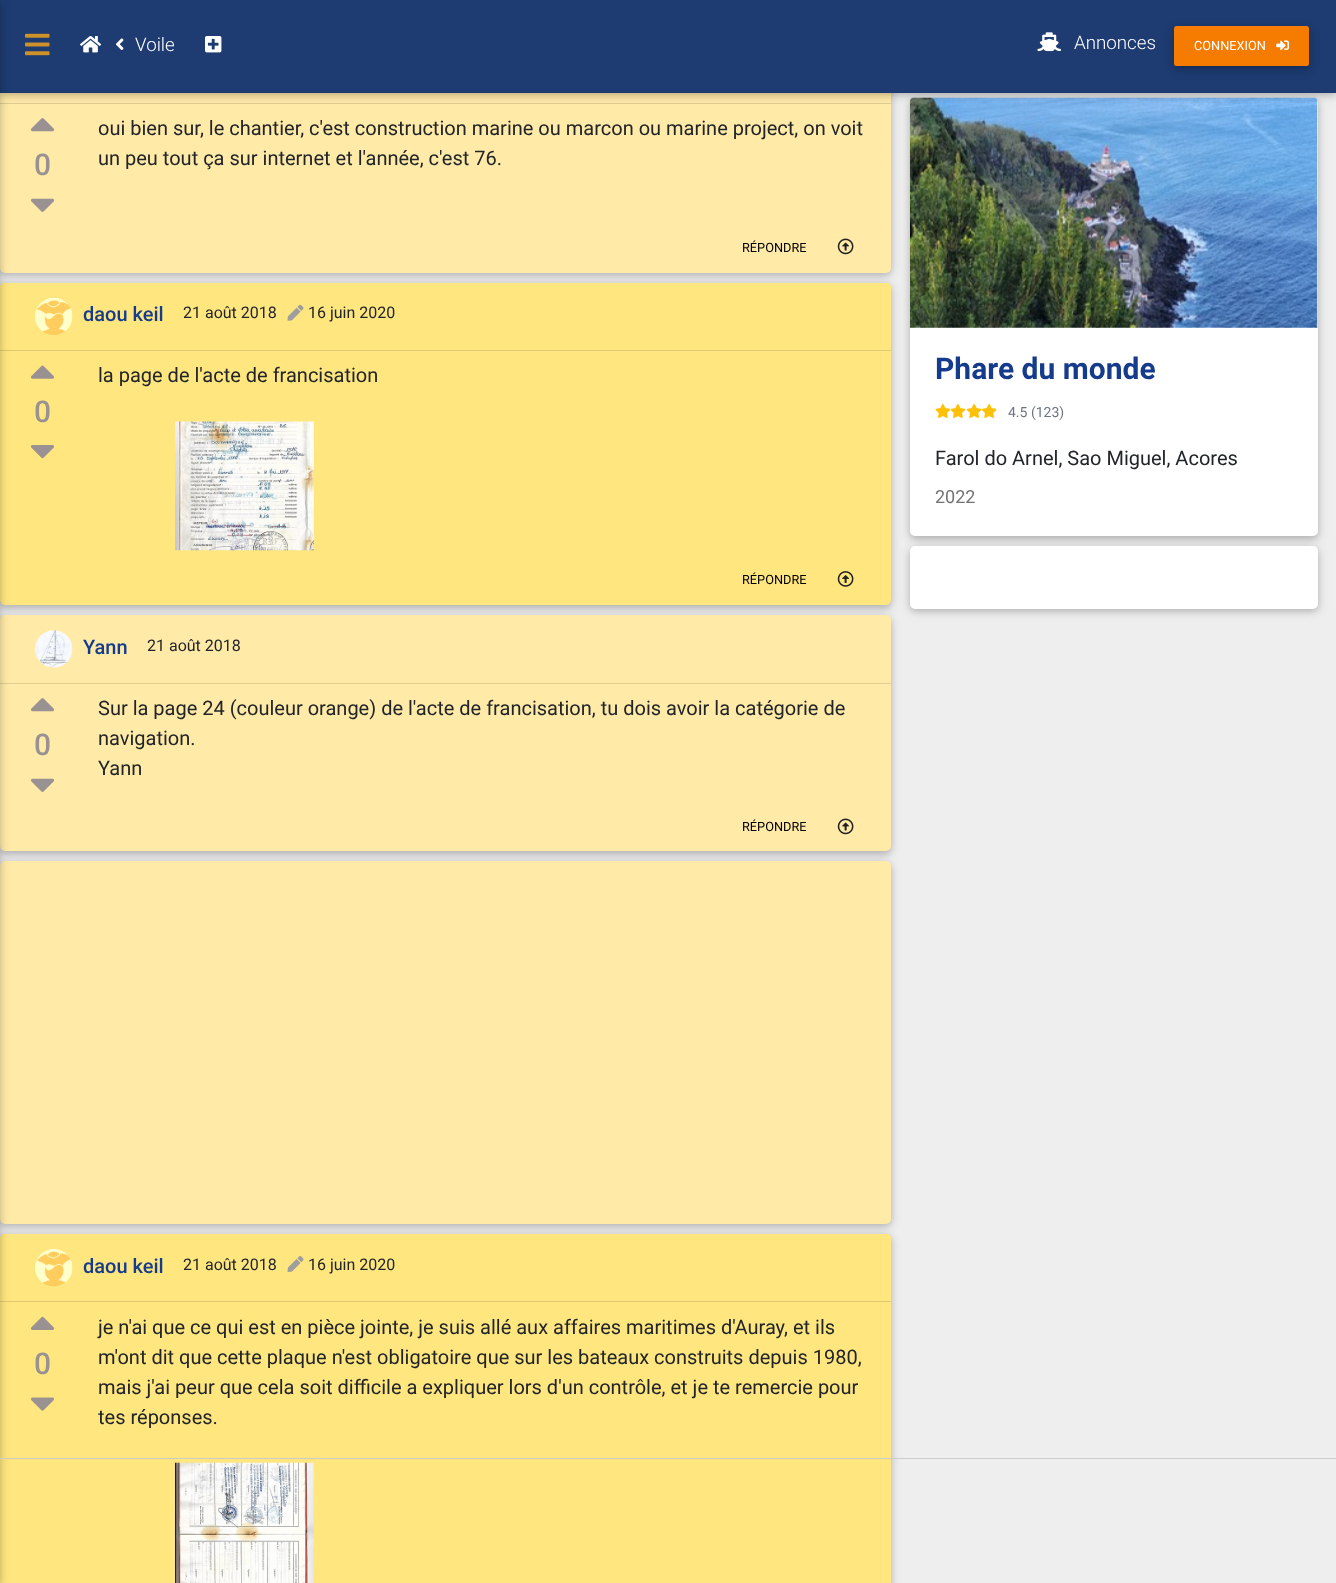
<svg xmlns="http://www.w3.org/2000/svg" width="1336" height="1583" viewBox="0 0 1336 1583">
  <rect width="100%" height="100%" fill="rgb(238,238,238)"/>
  <rect x="0" y="38" width="891" height="237" rx="5" fill="rgba(0,0,0,0.12)" filter="blur(6px)"/>
  <rect x="0" y="38" width="891" height="237" rx="5" fill="rgba(0,0,0,0.16)" filter="blur(3px)"/>
  <rect x="0" y="35" width="891" height="238" rx="5" fill="rgb(255,234,168)"/>
  <rect x="0" y="103" width="891" height="1" fill="rgb(223,205,147)"/>
  <rect x="910" y="100" width="408" height="439" rx="5" fill="rgba(0,0,0,0.12)" filter="blur(6px)"/>
  <rect x="910" y="100" width="408" height="439" rx="5" fill="rgba(0,0,0,0.16)" filter="blur(3px)"/>
  <rect x="910" y="98" width="408" height="438" rx="5" fill="rgb(255,255,255)"/>
  <image x="910" y="97" width="408" height="231" href="pic22.png"/>
  <rect x="0" y="3" width="1336" height="92" fill="rgba(0,0,0,0.12)" filter="blur(6px)"/>
  <rect x="0" y="3" width="1336" height="92" fill="rgba(0,0,0,0.16)" filter="blur(3px)"/>
  <rect x="0" y="0" width="1336" height="93" fill="rgb(30,60,114)"/>
  <rect x="0" y="285" width="891" height="323" rx="5" fill="rgba(0,0,0,0.12)" filter="blur(6px)"/>
  <rect x="0" y="285" width="891" height="323" rx="5" fill="rgba(0,0,0,0.16)" filter="blur(3px)"/>
  <rect x="0" y="283" width="891" height="322" rx="5" fill="rgb(255,230,127)"/>
  <path d="M4 283H887C889 283 891 285 891 287V351H0V287C0 285 2 283 4 283Z" fill="rgb(255,230,127)"/>
  <rect x="0" y="350" width="891" height="1" fill="rgb(223,201,111)"/>
  <rect x="0" y="618" width="891" height="236" rx="5" fill="rgba(0,0,0,0.12)" filter="blur(6px)"/>
  <rect x="0" y="618" width="891" height="236" rx="5" fill="rgba(0,0,0,0.16)" filter="blur(3px)"/>
  <rect x="0" y="615" width="891" height="236" rx="5" fill="rgb(255,234,168)"/>
  <path d="M4 615H887C889 615 891 617 891 619V684H0V619C0 617 2 615 4 615Z" fill="rgb(255,234,168)"/>
  <rect x="0" y="683" width="891" height="1" fill="rgb(223,205,147)"/>
  <rect x="0" y="864" width="891" height="362" rx="5" fill="rgba(0,0,0,0.12)" filter="blur(6px)"/>
  <rect x="0" y="864" width="891" height="362" rx="5" fill="rgba(0,0,0,0.16)" filter="blur(3px)"/>
  <rect x="0" y="861" width="891" height="363" rx="5" fill="rgb(255,234,168)"/>
  <rect x="0" y="1236" width="891" height="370" rx="5" fill="rgba(0,0,0,0.12)" filter="blur(6px)"/>
  <rect x="0" y="1236" width="891" height="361" rx="5" fill="rgba(0,0,0,0.16)" filter="blur(3px)"/>
  <rect x="0" y="1234" width="891" height="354" rx="5" fill="rgb(255,230,127)"/>
  <path d="M4 1234H887C889 1234 891 1236 891 1238V1303H0V1238C0 1236 2 1234 4 1234Z" fill="rgb(255,230,127)"/>
  <rect x="0" y="1301" width="891" height="1" fill="rgb(223,201,111)"/>
  <rect x="-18" y="3" width="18" height="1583" fill="rgba(0,0,0,0.12)" filter="blur(6px)"/>
  <rect x="-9" y="3" width="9" height="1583" fill="rgba(0,0,0,0.16)" filter="blur(3px)"/>
  <image x="25" y="33" width="25" height="23" href="pic1.png"/>
  <image x="80" y="36" width="21" height="17" href="pic2.png"/>
  <image x="116" y="38" width="8" height="12" href="pic3.png"/>
  <text x="135" y="51" font-family="Roboto" font-size="18.75" font-weight="300" fill="rgb(255,255,255)">Voile</text>
  <image x="205" y="36" width="17" height="17" href="pic4.png"/>
  <image x="1037" y="32" width="24" height="20" href="pic5.png"/>
  <text x="1074" y="49" font-family="Roboto" font-size="18.75" font-weight="300" fill="rgb(255,255,255)">Annonces</text>
  <rect x="1174" y="29" width="135" height="40" rx="2.5" fill="rgba(0,0,0,0.12)" filter="blur(6px)"/>
  <rect x="1174" y="29" width="135" height="40" rx="2.5" fill="rgba(0,0,0,0.16)" filter="blur(3px)"/>
  <rect x="1174" y="26" width="135" height="40" rx="2.5" fill="rgb(245,124,0)"/>
  <text x="1194" y="50" font-family="Roboto" font-size="12.75" fill="rgb(255,255,255)">CONNEXION</text>
  <image x="1276" y="40" width="14" height="11" href="pic6.png"/>
  <image x="30" y="118" width="25" height="14" href="pic7.png"/>
  <text x="34" y="175" font-family="Roboto" font-size="30" font-weight="500" fill="rgb(154,146,146)">0</text>
  <image x="30" y="198" width="25" height="14" href="pic8.png"/>
  <g font-family="Roboto" font-size="20" fill="rgb(33,37,41)">
    <text>
      <tspan x="98" y="135">oui bien sur, le chantier, c'est construction marine ou marcon ou marine project, on voit</tspan>
      <tspan x="98" y="165">un peu tout ça sur internet et l'année, c'est 76.</tspan>
    </text>
  </g>
  <text x="742" y="252" font-family="Roboto" font-size="12.75" fill="rgb(0,0,0)">RÉPONDRE</text>
  <image x="837" y="238" width="17" height="17" href="pic9.png"/>
  <image x="35" y="297" width="38" height="38" href="pic10.png"/>
  <text x="83" y="321" font-family="Roboto" font-size="20" font-weight="500" fill="rgb(21,60,140)">daou keil</text>
  <text x="183" y="318" font-family="Roboto" font-size="16" fill="rgb(33,37,41)">21 août 2018</text>
  <image x="287" y="304" width="17" height="17" href="pic11.png"/>
  <text x="308" y="318" font-family="Roboto" font-size="16" fill="rgb(33,37,41)">16 juin 2020</text>
  <text x="98" y="382" font-family="Roboto" font-size="20" fill="rgb(33,37,41)">la page de l'acte de francisation</text>
  <image x="175" y="421" width="139" height="130" href="pic12.png"/>
  <image x="31" y="365" width="23" height="14" href="pic13.png"/>
  <text x="34" y="422" font-family="Roboto" font-size="30" font-weight="500" fill="rgb(154,146,146)">0</text>
  <image x="30" y="445" width="25" height="14" href="pic14.png"/>
  <text x="742" y="584" font-family="Roboto" font-size="12.75" fill="rgb(0,0,0)">RÉPONDRE</text>
  <image x="837" y="571" width="17" height="16" href="pic15.png"/>
  <image x="35" y="630" width="38" height="38" href="pic16.png"/>
  <text x="83" y="654" font-family="Roboto" font-size="20" font-weight="500" fill="rgb(21,60,140)">Yann</text>
  <text x="147" y="651" font-family="Roboto" font-size="16" fill="rgb(33,37,41)">21 août 2018</text>
  <image x="30" y="698" width="25" height="14" href="pic7.png"/>
  <text x="34" y="755" font-family="Roboto" font-size="30" font-weight="500" fill="rgb(154,146,146)">0</text>
  <image x="30" y="778" width="25" height="14" href="pic8.png"/>
  <g font-family="Roboto" font-size="20" fill="rgb(33,37,41)">
    <text>
      <tspan x="98" y="715">Sur la page 24 (couleur orange) de l'acte de francisation, tu dois avoir la catégorie de</tspan>
      <tspan x="98" y="745">navigation.</tspan>
      <tspan x="98" y="775">Yann</tspan>
    </text>
  </g>
  <text x="742" y="831" font-family="Roboto" font-size="12.75" fill="rgb(0,0,0)">RÉPONDRE</text>
  <image x="837" y="818" width="17" height="17" href="pic9.png"/>
  <image x="35" y="1249" width="38" height="38" href="pic17.png"/>
  <text x="83" y="1273" font-family="Roboto" font-size="20" font-weight="500" fill="rgb(21,60,140)">daou keil</text>
  <text x="183" y="1270" font-family="Roboto" font-size="16" fill="rgb(33,37,41)">21 août 2018</text>
  <image x="287" y="1256" width="17" height="16" href="pic18.png"/>
  <text x="308" y="1270" font-family="Roboto" font-size="16" fill="rgb(33,37,41)">16 juin 2020</text>
  <image x="30" y="1316" width="25" height="14" href="pic19.png"/>
  <text x="34" y="1374" font-family="Roboto" font-size="30" font-weight="500" fill="rgb(154,146,146)">0</text>
  <image x="31" y="1397" width="23" height="14" href="pic20.png"/>
  <g font-family="Roboto" font-size="20" fill="rgb(33,37,41)">
    <text>
      <tspan x="98" y="1334">je n'ai que ce qui est en pièce jointe, je suis allé aux affaires maritimes d'Auray, et ils</tspan>
      <tspan x="98" y="1364">m'ont dit que cette plaque n'est obligatoire que sur les bateaux construits depuis 1980,</tspan>
      <tspan x="98" y="1394">mais j'ai peur que cela soit difficile a expliquer lors d'un contrôle, et je te remercie pour</tspan>
      <tspan x="98" y="1424">tes réponses.</tspan>
    </text>
  </g>
  <image x="175" y="1462" width="139" height="121" href="pic21.png"/>
  <text x="935" y="379" font-family="Roboto" font-size="30" font-weight="bold" fill="rgb(21,60,140)">Phare du monde</text>
  <image x="935" y="404" width="16" height="14" href="pic23.png"/>
  <image x="950" y="404" width="16" height="14" href="pic24.png"/>
  <image x="966" y="404" width="16" height="14" href="pic25.png"/>
  <image x="981" y="404" width="16" height="14" href="pic26.png"/>
  <text x="1008" y="417" font-family="Roboto" font-size="14" fill="rgb(108,117,125)">4.5 (123)</text>
  <text x="935" y="465" font-family="Roboto" font-size="20" fill="rgb(33,37,41)">Farol do Arnel, Sao Miguel, Acores</text>
  <text x="935" y="503" font-family="Roboto" font-size="18" fill="rgb(116,115,115)">2022</text>
  <rect x="910" y="549" width="408" height="62" rx="5" fill="rgba(0,0,0,0.12)" filter="blur(6px)"/>
  <rect x="910" y="549" width="408" height="62" rx="5" fill="rgba(0,0,0,0.16)" filter="blur(3px)"/>
  <rect x="910" y="546" width="408" height="63" rx="5" fill="rgb(255,255,255)"/>
  <rect x="0" y="1458" width="1336" height="1" fill="rgb(204,204,204)"/>
</svg>
